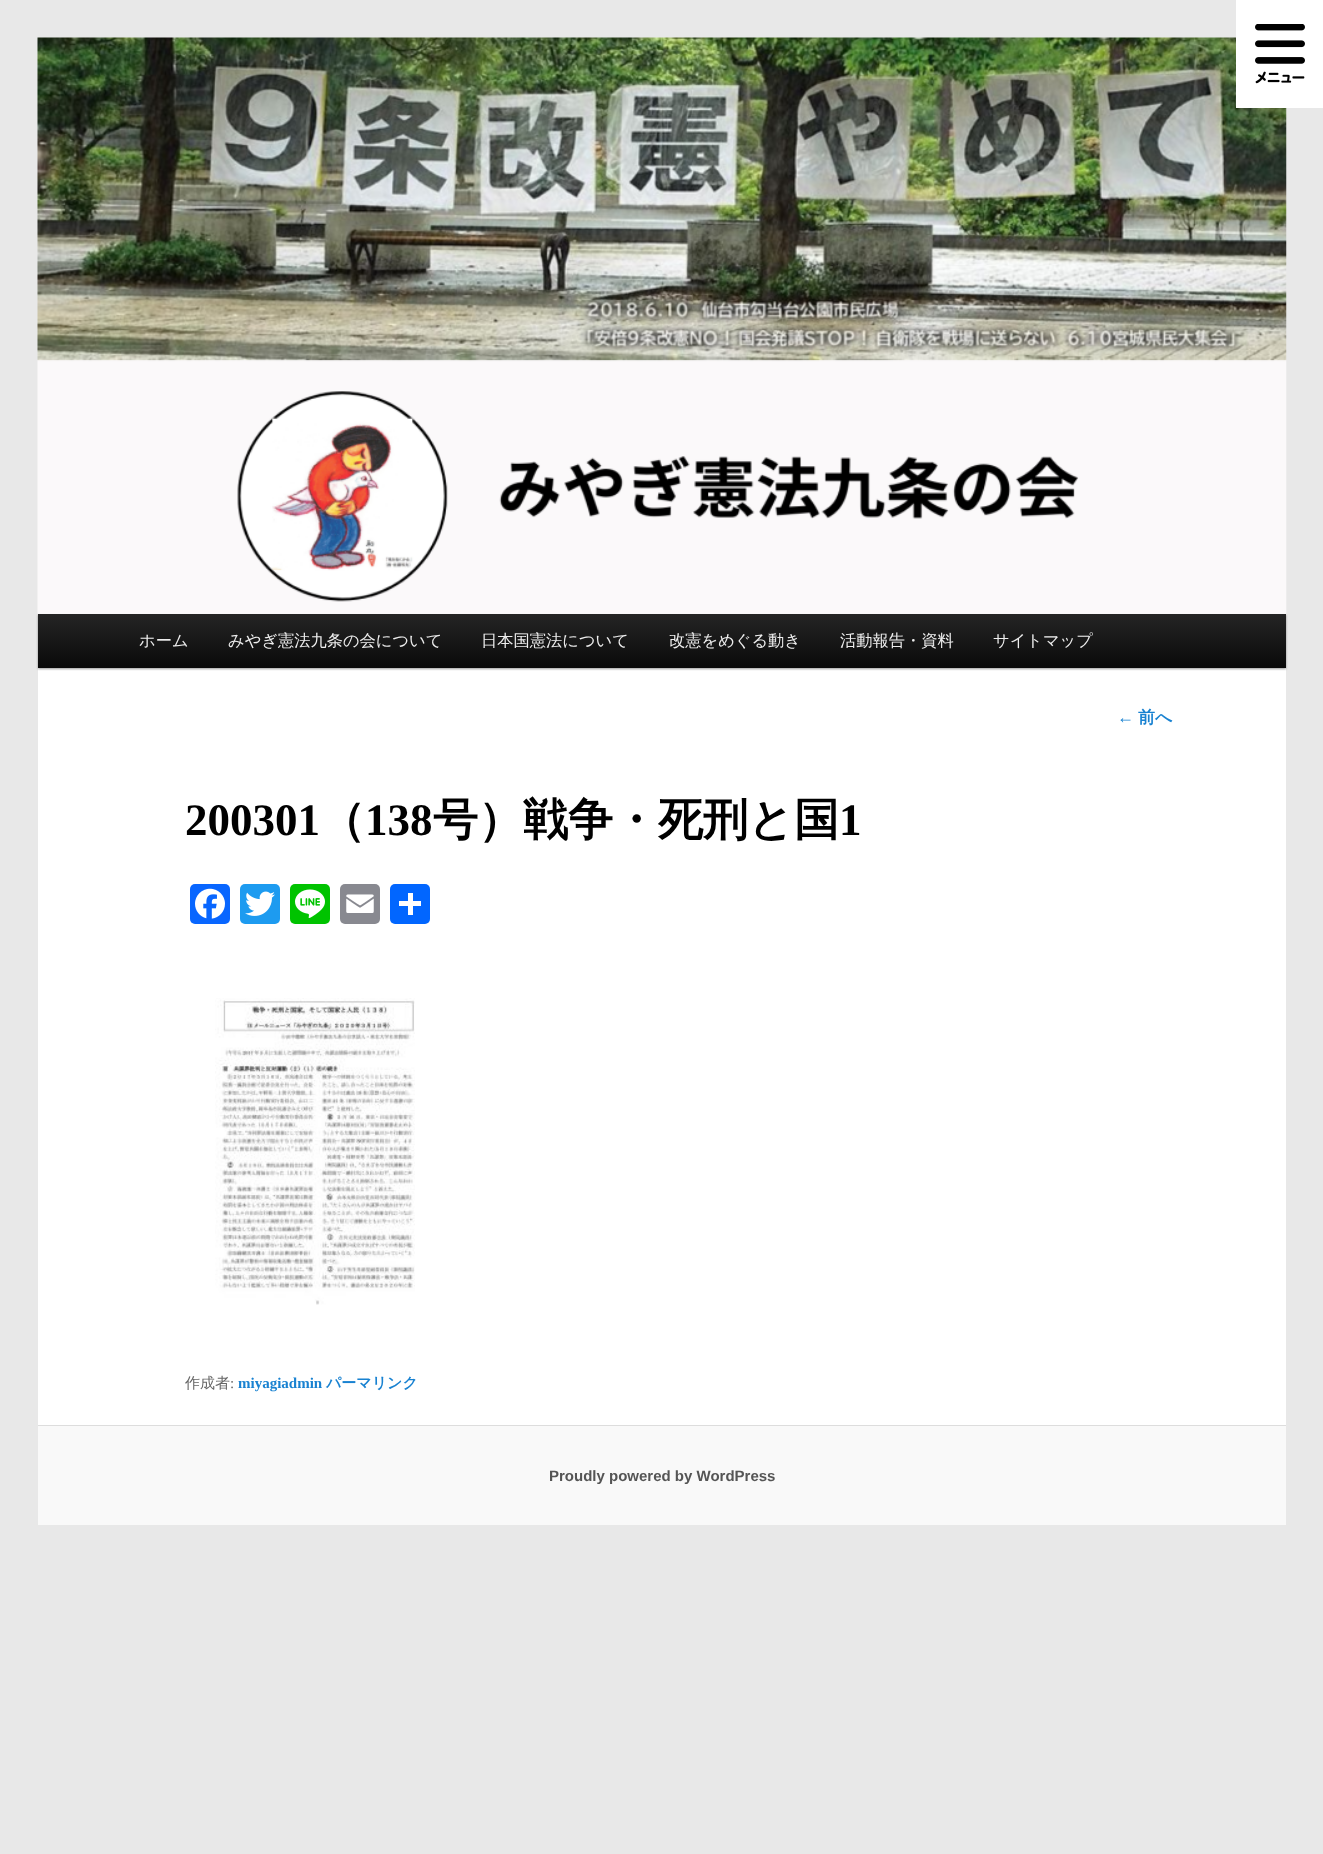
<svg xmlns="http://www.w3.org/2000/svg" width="1323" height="1854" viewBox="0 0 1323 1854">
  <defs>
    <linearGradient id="g1" gradientUnits="userSpaceOnUse" x1="662" y1="614" x2="662" y2="668"><stop offset="0" stop-color="rgb(37,37,37)"/><stop offset="1" stop-color="rgb(10,10,10)"/></linearGradient>
  </defs>
  <rect width="100%" height="100%" fill="rgb(232,232,232)"/>
  <rect x="38" y="613" width="1248" height="812" fill="rgb(255,255,255)"/>
  <rect x="38" y="615" width="1248" height="54" fill="rgba(0,0,0,0.4)" filter="blur(1px)"/>
  <image x="37" y="37" width="1250" height="577" href="pic2.png"/>
  <rect x="1236" y="0" width="87" height="108" fill="rgb(255,255,255)"/>
  <image x="1255" y="24" width="50" height="60" href="pic1.png"/>
  <rect x="38" y="614" width="1248" height="54" fill="url(#g1)"/>
  <g font-family="WenQuanYi Zen Hei" font-size="16.25" font-weight="500" fill="rgb(238,238,238)">
    <text x="139" y="646">ホーム</text>
    <text x="228" y="646">みやぎ憲法九条の会について</text>
    <text x="481" y="646">日本国憲法について</text>
    <text x="669" y="646">改憲をめぐる動き</text>
    <text x="840" y="646">活動報告・資料</text>
    <text x="993" y="646">サイトマップ</text>
  </g>
  <text x="1117" y="723" font-family="Liberation Sans" font-size="17" fill="rgb(25,130,209)">←</text>
  <text x="1138" y="723" font-family="WenQuanYi Zen Hei" font-size="17" font-weight="bold" fill="rgb(25,130,209)">前へ</text>
  <text x="185" y="835" font-family="Liberation Serif" font-size="45" font-weight="bold" fill="rgb(0,0,0)">200301</text>
  <text x="320" y="835" font-family="WenQuanYi Zen Hei" font-size="45" font-weight="bold" fill="rgb(0,0,0)">（</text>
  <text x="365" y="835" font-family="Liberation Serif" font-size="45" font-weight="bold" fill="rgb(0,0,0)">138</text>
  <text x="433" y="835" font-family="WenQuanYi Zen Hei" font-size="45" font-weight="bold" fill="rgb(0,0,0)">号）戦争・死刑と国</text>
  <text x="839" y="835" font-family="Liberation Serif" font-size="45" font-weight="bold" fill="rgb(0,0,0)">1</text>
  <rect x="190" y="884" width="40" height="40" rx="5" fill="rgb(8,102,255)"/>
  <image x="195" y="888" width="30" height="31" href="pic3.png"/>
  <rect x="240" y="884" width="40" height="40" rx="5" fill="rgb(29,155,240)"/>
  <image x="245" y="891" width="30" height="25" href="pic4.png"/>
  <rect x="290" y="884" width="40" height="40" rx="5" fill="rgb(0,195,0)"/>
  <image x="295" y="889" width="30" height="29" href="pic5.png"/>
  <rect x="340" y="884" width="40" height="40" rx="5" fill="rgb(136,137,144)"/>
  <image x="346" y="894" width="28" height="19" href="pic6.png"/>
  <rect x="390" y="884" width="40" height="40" rx="5" fill="rgb(1,102,255)"/>
  <rect x="408" y="893" width="5" height="22" fill="rgb(255,255,255)"/>
  <rect x="399" y="901" width="22" height="5" fill="rgb(255,255,255)"/>
  <image x="215" y="998" width="200" height="307" href="pic7.png"/>
  <text x="185" y="1388" font-family="WenQuanYi Zen Hei" font-size="15" font-weight="500" fill="rgb(102,102,102)">作成者</text>
  <text x="230" y="1388" font-family="Liberation Serif" font-size="15" fill="rgb(102,102,102)">:</text>
  <text x="238" y="1388" font-family="Liberation Serif" font-size="15" font-weight="bold" fill="rgb(25,130,209)">miyagiadmin</text>
  <text x="326" y="1388" font-family="WenQuanYi Zen Hei" font-size="15" font-weight="bold" fill="rgb(25,130,209)">パーマリンク</text>
  <rect x="38" y="1426" width="1248" height="99" fill="rgb(249,249,249)"/>
  <rect x="38" y="1425" width="1248" height="1" fill="rgb(221,221,221)"/>
  <text x="549" y="1481" font-family="Liberation Sans" font-size="15" font-weight="bold" fill="rgb(85,85,85)">Proudly powered by WordPress</text>
</svg>
